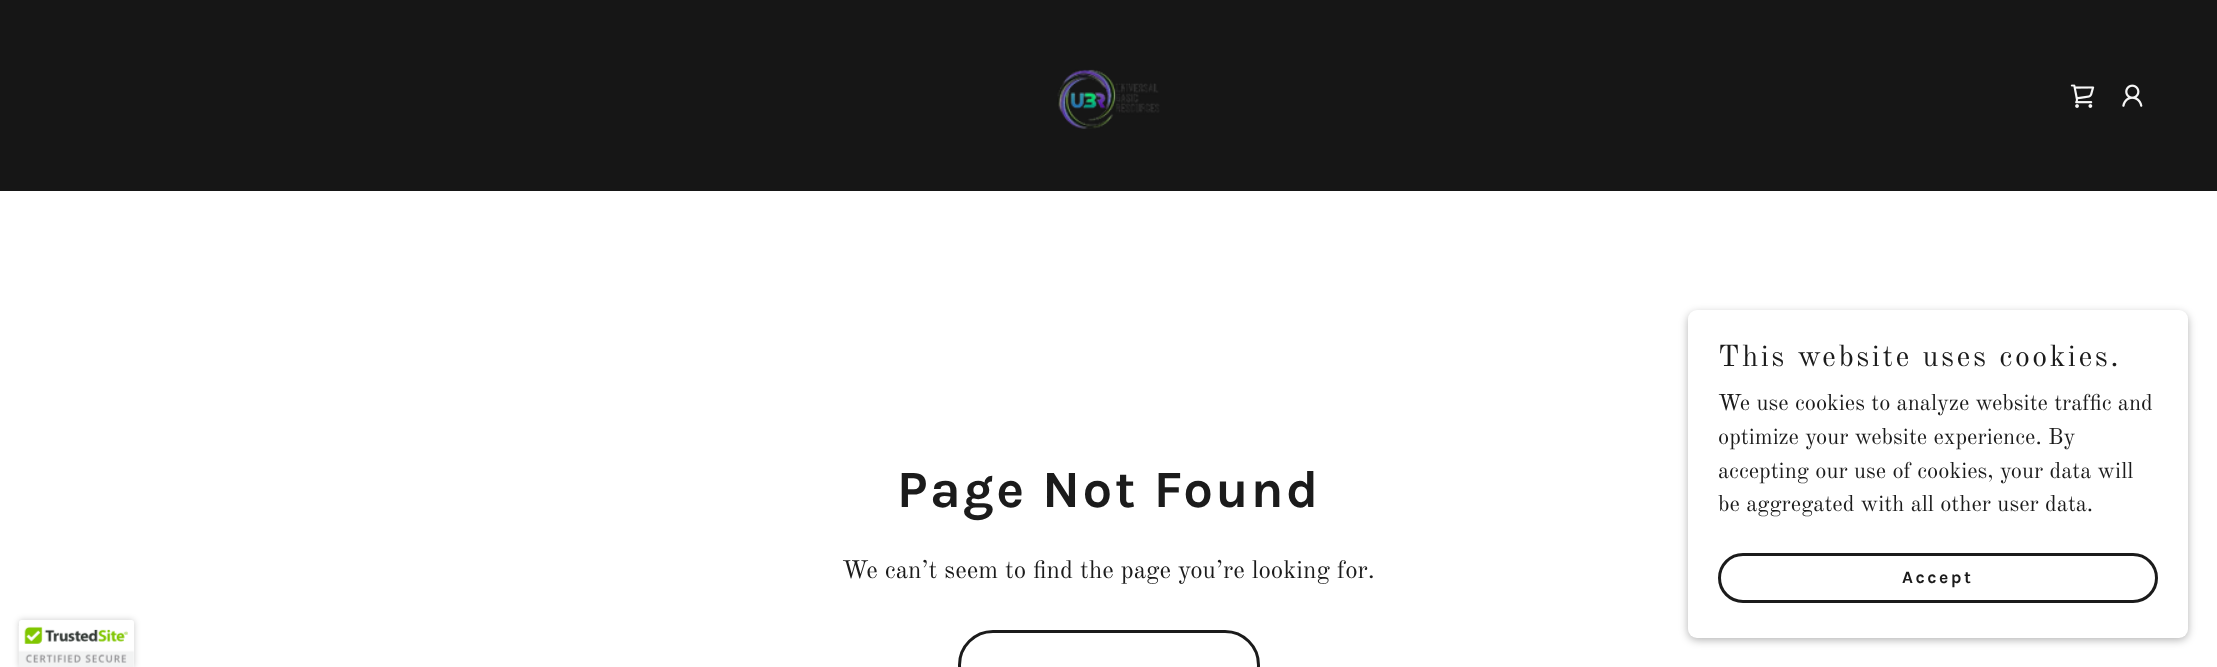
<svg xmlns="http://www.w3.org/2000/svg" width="2217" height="667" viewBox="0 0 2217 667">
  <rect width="100%" height="100%" fill="rgb(22,22,22)"/>
  <image x="1057" y="69" width="103" height="60" href="pic1.png"/>
  <image x="2070" y="84" width="25" height="24" href="pic2.png"/>
  <image x="2122" y="84" width="21" height="23" href="pic3.png"/>
  <rect x="0" y="191" width="2217" height="476" fill="rgb(255,255,255)"/>
  <text x="897" y="507" font-family="Karla" font-size="52.5" font-weight="bold" letter-spacing="2.5" fill="rgb(27,27,27)">Page Not Found</text>
  <text x="842" y="578" font-family="Old Standard TT" font-size="25" fill="rgb(27,27,27)">We can’t seem to find the page you’re looking for.</text>
  <rect x="959.5" y="631.5" width="299" height="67" rx="33.5" fill="none" stroke="rgb(27,27,27)" stroke-width="3"/>
  <rect x="1688" y="313" width="500" height="327" rx="9" fill="rgba(0,0,0,0.3)" filter="blur(4px)"/>
  <rect x="1688" y="310" width="500" height="328" rx="9" fill="rgb(255,255,255)"/>
  <text x="1718" y="366" font-family="Old Standard TT" font-size="30" letter-spacing="2.5" fill="rgb(27,27,27)">This website uses cookies.</text>
  <g font-family="Old Standard TT" font-size="22.5" fill="rgb(27,27,27)">
    <text>
      <tspan x="1718" y="410">We use cookies to analyze website traffic and</tspan>
      <tspan x="1718" y="444">optimize your website experience. By</tspan>
      <tspan x="1718" y="478">accepting our use of cookies, your data will</tspan>
      <tspan x="1718" y="511">be aggregated with all other user data.</tspan>
    </text>
  </g>
  <rect x="1719.5" y="554.5" width="437" height="47" rx="23.5" fill="none" stroke="rgb(27,27,27)" stroke-width="3"/>
  <text x="1902" y="583" font-family="Karla" font-size="17.5" font-weight="bold" letter-spacing="2.5" fill="rgb(27,27,27)">Accept</text>
  <rect x="19" y="620" width="115" height="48" rx="2.5" fill="rgba(0,0,0,0.2)" filter="blur(3px)"/>
  <path d="M21.5 620H131.5C133 620 134 621 134 622.5V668H19V622.5C19 621 20 620 21.5 620Z" fill="rgb(255,255,255)"/>
  <image x="18" y="626" width="116" height="41" href="pic4.png"/>
</svg>
